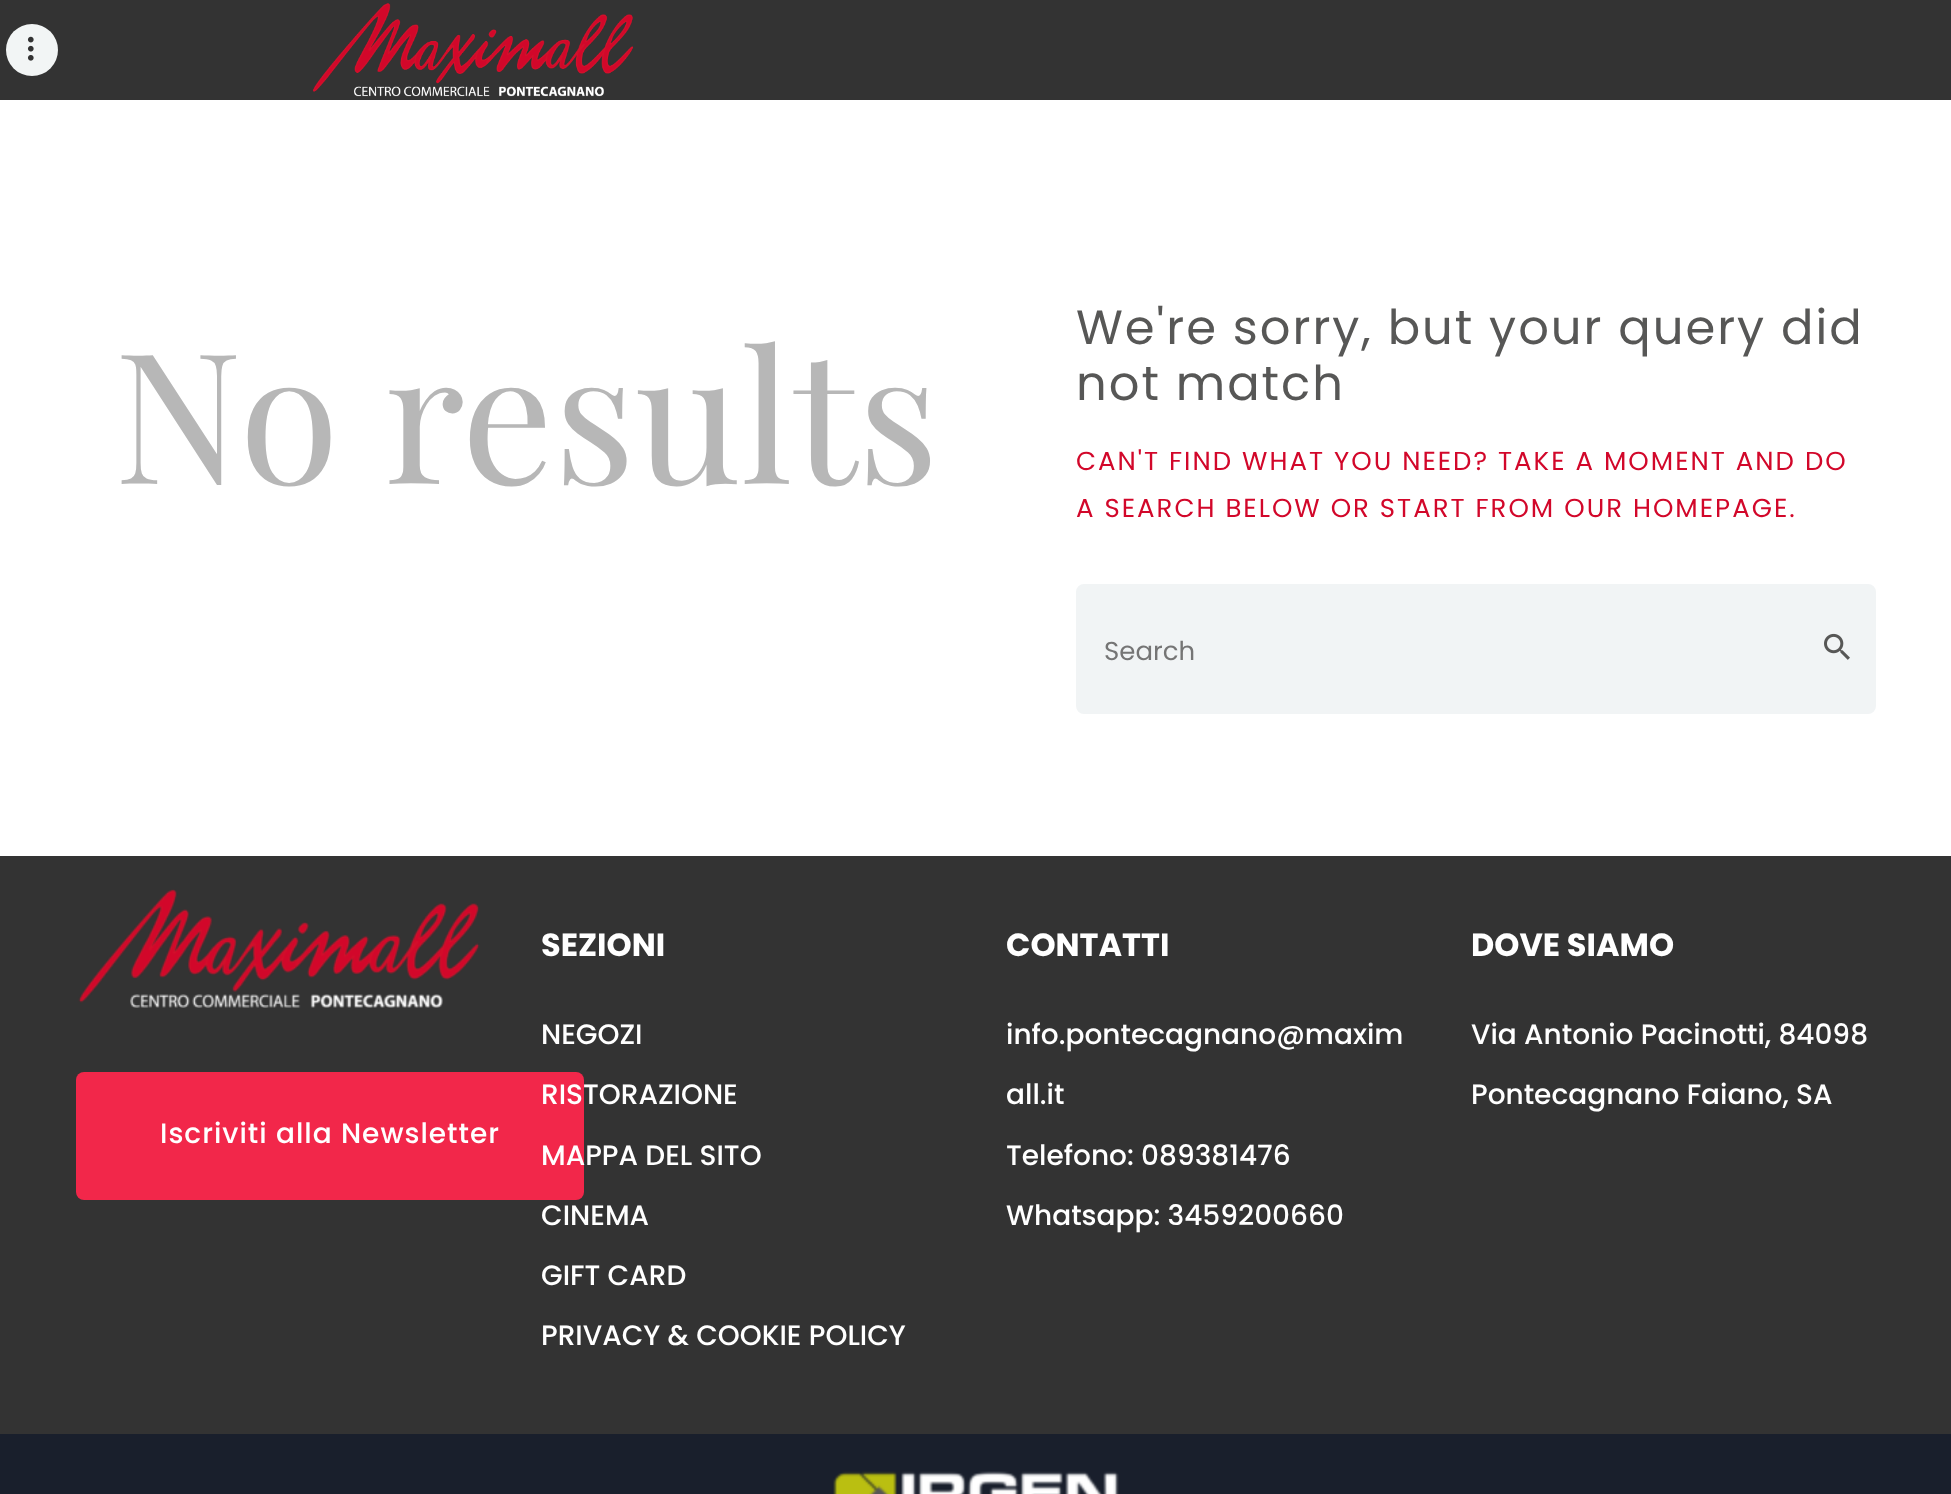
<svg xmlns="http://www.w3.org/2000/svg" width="1951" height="1494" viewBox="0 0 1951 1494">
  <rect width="100%" height="100%" fill="rgb(255,255,255)"/>
  <rect x="0" y="0" width="1951" height="100" fill="rgb(51,51,51)"/>
  <circle cx="32" cy="50" r="26" fill="rgb(242,245,245)"/>
  <image x="27" y="36" width="7" height="25" href="pic1.png"/>
  <image x="312" y="3" width="322" height="94" href="pic2.png"/>
  <text x="114" y="484" font-family="Playfair Display" font-size="182" fill="rgb(183,183,183)">No results</text>
  <g font-family="Poppins" font-size="48" letter-spacing="2" fill="rgb(87,87,86)">
    <text>
      <tspan x="1076" y="344">We're sorry, but your query did</tspan>
      <tspan x="1076" y="400">not match</tspan>
    </text>
  </g>
  <g font-family="Poppins" font-size="26" letter-spacing="2" fill="rgb(210,7,42)">
    <text>
      <tspan x="1076" y="470">CAN'T FIND WHAT YOU NEED? TAKE A MOMENT AND DO</tspan>
      <tspan x="1076" y="517">A SEARCH BELOW OR START FROM OUR HOMEPAGE.</tspan>
    </text>
  </g>
  <rect x="1077" y="585" width="798" height="128" rx="7" fill="rgb(241,244,245)" stroke="rgb(241,244,245)" stroke-width="2"/>
  <text x="1104" y="660" font-family="Poppins" font-size="26" fill="rgb(117,117,117)">Search</text>
  <image x="1824" y="633" width="26" height="27" href="pic3.png"/>
  <rect x="0" y="856" width="1951" height="578" fill="rgb(51,51,51)"/>
  <text x="541" y="956" font-family="Poppins" font-size="32" font-weight="bold" fill="rgb(255,255,255)">SEZIONI</text>
  <text x="541" y="1044" font-family="Poppins" font-size="28" font-weight="500" fill="rgb(255,255,255)">NEGOZI</text>
  <rect x="76" y="1072" width="508" height="128" rx="8" fill="rgb(242,39,74)"/>
  <g font-family="Poppins" font-size="28" font-weight="500" fill="rgb(255,255,255)">
    <text x="541" y="1104">RISTORAZIONE</text>
    <text x="541" y="1165">MAPPA DEL SITO</text>
    <text x="541" y="1225">CINEMA</text>
    <text x="541" y="1285">GIFT CARD</text>
    <text x="541" y="1345">PRIVACY &amp; COOKIE POLICY</text>
  </g>
  <text x="1006" y="956" font-family="Poppins" font-size="32" font-weight="bold" fill="rgb(255,255,255)">CONTATTI</text>
  <g font-family="Poppins" font-size="28" font-weight="500" fill="rgb(255,255,255)">
    <text x="1006" y="1044">info.pontecagnano@maxim</text>
    <text x="1006" y="1104">all.it</text>
    <text x="1006" y="1165">Telefono: 089381476</text>
    <text x="1006" y="1225">Whatsapp: 3459200660</text>
  </g>
  <text x="1471" y="956" font-family="Poppins" font-size="32" font-weight="bold" fill="rgb(255,255,255)">DOVE SIAMO</text>
  <g font-family="Poppins" font-size="28" font-weight="500" fill="rgb(255,255,255)">
    <text x="1471" y="1044">Via Antonio Pacinotti, 84098</text>
    <text x="1471" y="1104">Pontecagnano Faiano, SA</text>
  </g>
  <image x="78" y="889" width="402" height="119" href="pic4.png"/>
  <text x="160" y="1143" font-family="Poppins" font-size="28" font-weight="500" letter-spacing="1" fill="rgb(255,255,255)">Iscriviti alla Newsletter</text>
  <rect x="0" y="1434" width="1951" height="60" fill="rgb(25,31,44)"/>
  <image x="833" y="1471" width="286" height="23" href="pic5.png"/>
</svg>
